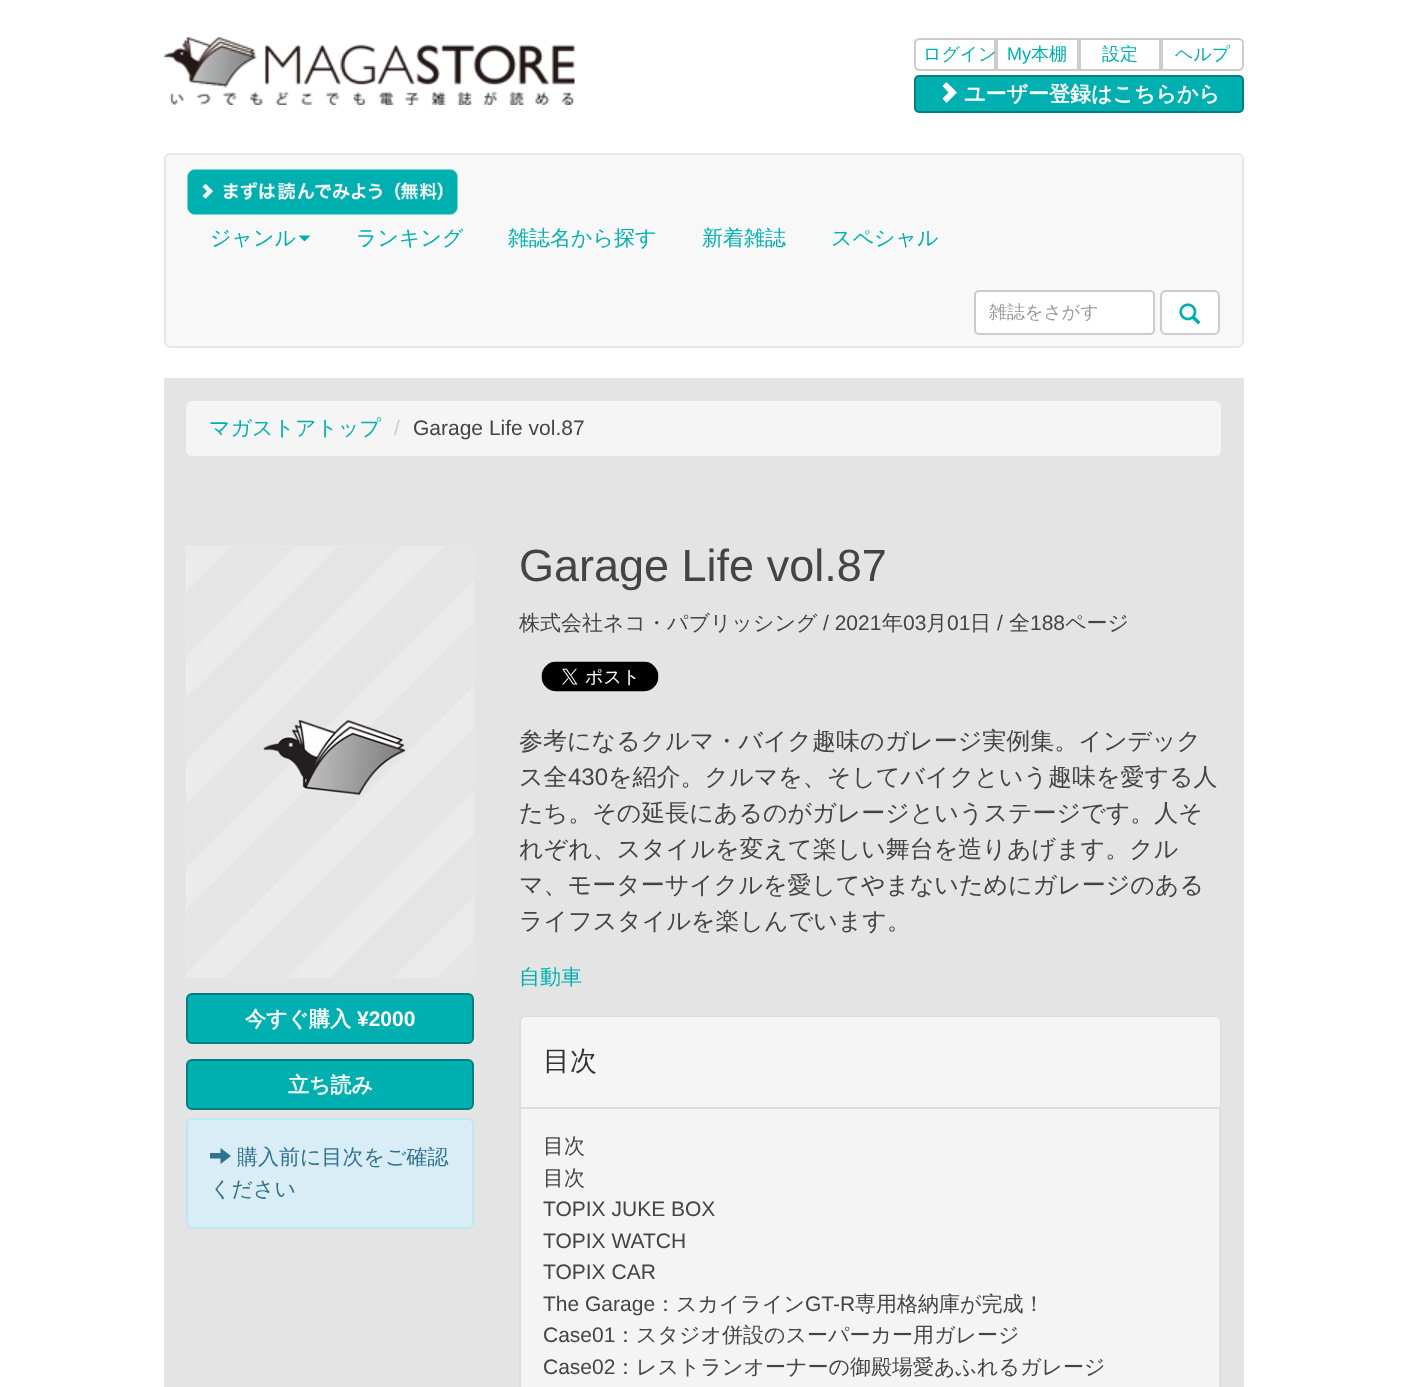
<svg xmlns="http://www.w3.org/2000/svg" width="1406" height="1387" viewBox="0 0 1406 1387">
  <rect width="100%" height="100%" fill="rgb(255,255,255)"/>
  <image x="163" y="37" width="412" height="68" href="pic1.png"/>
  <path d="M919 39H995V70H919C917 70 915 68 915 66V43C915 41 917 39 919 39Z" fill="none" stroke="rgb(204,204,204)" stroke-width="2"/>
  <text x="923" y="60" font-family="WenQuanYi Zen Hei" font-size="18" font-weight="500" fill="rgb(0,176,176)">ログイン</text>
  <rect x="997" y="39" width="81" height="31" fill="none" stroke="rgb(204,204,204)" stroke-width="2"/>
  <text x="1007" y="60" font-family="Liberation Sans" font-size="18" fill="rgb(0,176,176)">My</text>
  <text x="1031" y="60" font-family="WenQuanYi Zen Hei" font-size="18" font-weight="500" fill="rgb(0,176,176)">本棚</text>
  <rect x="1080" y="39" width="80" height="31" fill="none" stroke="rgb(204,204,204)" stroke-width="2"/>
  <text x="1102" y="60" font-family="WenQuanYi Zen Hei" font-size="18" font-weight="500" fill="rgb(0,176,176)">設定</text>
  <path d="M1162 39H1239C1241 39 1243 41 1243 43V66C1243 68 1241 70 1239 70H1162Z" fill="none" stroke="rgb(204,204,204)" stroke-width="2"/>
  <text x="1175" y="60" font-family="WenQuanYi Zen Hei" font-size="18" font-weight="500" fill="rgb(0,176,176)">ヘルプ</text>
  <rect x="915" y="76" width="328" height="36" rx="4" fill="rgb(0,176,176)" stroke="rgb(0,128,128)" stroke-width="2"/>
  <path d="M942.5 98.5L948.5 92.5L942.5 86L946.5 82L957 92.5L946.5 103Z" fill="rgb(255,255,255)"/>
  <text x="964" y="101" font-family="WenQuanYi Zen Hei" font-size="21" font-weight="bold" fill="rgb(255,255,255)">ユーザー登録はこちらから</text>
  <rect x="165" y="154" width="1078" height="193" rx="5" fill="rgb(248,248,248)" stroke="rgb(231,231,231)" stroke-width="2"/>
  <image x="187" y="169" width="271" height="46" href="pic2.png"/>
  <text x="210" y="245" font-family="WenQuanYi Zen Hei" font-size="21" font-weight="500" fill="rgb(0,176,176)">ジャンル</text>
  <path d="M298.5 235.5H310.5L304.5 241.5Z" fill="rgb(0,176,176)"/>
  <g font-family="WenQuanYi Zen Hei" font-size="21" font-weight="500" fill="rgb(0,176,176)">
    <text x="356" y="245">ランキング</text>
    <text x="508" y="245">雑誌名から探す</text>
    <text x="702" y="245">新着雑誌</text>
    <text x="831" y="245">スペシャル</text>
  </g>
  <rect x="975" y="291" width="179" height="43" rx="4" fill="rgb(255,255,255)" stroke="rgb(204,204,204)" stroke-width="2"/>
  <text x="989" y="318" font-family="WenQuanYi Zen Hei" font-size="18" font-weight="500" fill="rgb(153,153,153)">雑誌をさがす</text>
  <rect x="1161" y="291" width="58" height="43" rx="5" fill="rgb(255,255,255)" stroke="rgb(204,204,204)" stroke-width="2"/>
  <image x="1179" y="303" width="22" height="22" href="pic3.png"/>
  <rect x="164" y="378" width="1080" height="1009" fill="rgb(228,228,228)"/>
  <rect x="186" y="401" width="1035" height="55" rx="6" fill="rgb(245,245,245)"/>
  <text x="209" y="435" font-family="WenQuanYi Zen Hei" font-size="21" font-weight="500" fill="rgb(0,176,176)">マガストアトップ</text>
  <text x="394" y="435" font-family="Liberation Sans" font-size="21" fill="rgb(204,204,204)">/</text>
  <text x="413" y="435" font-family="Liberation Sans" font-size="21" fill="rgb(68,68,68)">Garage Life vol.87</text>
  <text x="519" y="581" font-family="Liberation Sans" font-size="45" fill="rgb(68,68,68)">Garage Life vol.87</text>
  <image x="186" y="546" width="288" height="432" href="pic4.png"/>
  <rect x="187" y="994" width="286" height="49" rx="5" fill="rgb(0,176,176)" stroke="rgb(0,128,128)" stroke-width="2"/>
  <text x="245" y="1026" font-family="WenQuanYi Zen Hei" font-size="21" font-weight="bold" fill="rgb(255,255,255)">今すぐ購入</text>
  <text x="357" y="1026" font-family="Liberation Sans" font-size="21" font-weight="bold" fill="rgb(255,255,255)">¥2000</text>
  <rect x="187" y="1060" width="286" height="49" rx="5" fill="rgb(0,176,176)" stroke="rgb(0,128,128)" stroke-width="2"/>
  <text x="288" y="1092" font-family="WenQuanYi Zen Hei" font-size="21" font-weight="bold" fill="rgb(255,255,255)">立ち読み</text>
  <rect x="187" y="1119" width="286" height="109" rx="5" fill="rgb(217,237,247)" stroke="rgb(188,232,241)" stroke-width="2"/>
  <path d="M210 1158.5V1153H220.5V1148L231 1156L220.5 1164V1158.5Z" fill="rgb(49,112,143)"/>
  <g font-family="WenQuanYi Zen Hei" font-size="21" font-weight="500" fill="rgb(49,112,143)">
    <text x="237" y="1164">購入前に目次をご確認</text>
    <text x="210" y="1196">ください</text>
  </g>
  <text x="519" y="630" font-family="WenQuanYi Zen Hei" font-size="21" font-weight="500" fill="rgb(68,68,68)">株式会社ネコ・パブリッシング</text>
  <text x="823" y="630" font-family="Liberation Sans" font-size="21" fill="rgb(68,68,68)">/ 2021</text>
  <text x="882" y="630" font-family="WenQuanYi Zen Hei" font-size="21" font-weight="500" fill="rgb(68,68,68)">年</text>
  <text x="903" y="630" font-family="Liberation Sans" font-size="21" fill="rgb(68,68,68)">03</text>
  <text x="926" y="630" font-family="WenQuanYi Zen Hei" font-size="21" font-weight="500" fill="rgb(68,68,68)">月</text>
  <text x="947" y="630" font-family="Liberation Sans" font-size="21" fill="rgb(68,68,68)">01</text>
  <text x="970" y="630" font-family="WenQuanYi Zen Hei" font-size="21" font-weight="500" fill="rgb(68,68,68)">日</text>
  <text x="997" y="630" font-family="Liberation Sans" font-size="21" fill="rgb(68,68,68)">/</text>
  <text x="1009" y="630" font-family="WenQuanYi Zen Hei" font-size="21" font-weight="500" fill="rgb(68,68,68)">全</text>
  <text x="1030" y="630" font-family="Liberation Sans" font-size="21" fill="rgb(68,68,68)">188</text>
  <text x="1065" y="630" font-family="WenQuanYi Zen Hei" font-size="21" font-weight="500" fill="rgb(68,68,68)">ページ</text>
  <image x="541" y="661" width="118" height="31" href="pic5.png"/>
  <g font-family="WenQuanYi Zen Hei" font-size="24" font-weight="500" fill="rgb(68,68,68)">
    <text>
      <tspan x="519" y="749">参考になるクルマ・バイク趣味のガレージ実例集。インデック</tspan>
      <tspan x="519" y="785">ス全</tspan>
    </text>
  </g>
  <text x="568" y="785" font-family="Liberation Sans" font-size="24" fill="rgb(68,68,68)">430</text>
  <g font-family="WenQuanYi Zen Hei" font-size="24" font-weight="500" fill="rgb(68,68,68)">
    <text x="608" y="785">を紹介。クルマを、そしてバイクという趣味を愛する人</text>
    <text>
      <tspan x="519" y="821">たち。その延長にあるのがガレージというステージです。人そ</tspan>
      <tspan x="519" y="857">れぞれ、スタイルを変えて楽しい舞台を造りあげます。クル</tspan>
      <tspan x="519" y="893">マ、モーターサイクルを愛してやまないためにガレージのある</tspan>
      <tspan x="519" y="929">ライフスタイルを楽しんでいます。</tspan>
    </text>
  </g>
  <text x="519" y="984" font-family="WenQuanYi Zen Hei" font-size="21" font-weight="500" fill="rgb(0,176,176)">自動車</text>
  <rect x="520" y="1017" width="700" height="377" rx="5" fill="rgb(244,244,244)" stroke="rgb(221,221,221)" stroke-width="2"/>
  <path d="M526 1017H1215C1218 1017 1220 1019 1220 1022V1109H521V1022C521 1019 523 1017 526 1017Z" fill="rgb(245,245,245)"/>
  <rect x="521" y="1107" width="699" height="2" fill="rgb(221,221,221)"/>
  <text x="543" y="1070" font-family="WenQuanYi Zen Hei" font-size="27" font-weight="500" fill="rgb(51,51,51)">目次</text>
  <g font-family="WenQuanYi Zen Hei" font-size="21" font-weight="500" fill="rgb(68,68,68)">
    <text>
      <tspan x="543" y="1153">目次</tspan>
      <tspan x="543" y="1185">目次</tspan>
    </text>
  </g>
  <g font-family="Liberation Sans" font-size="21" fill="rgb(68,68,68)">
    <text>
      <tspan x="543" y="1216">TOPIX JUKE BOX</tspan>
      <tspan x="543" y="1248">TOPIX WATCH</tspan>
      <tspan x="543" y="1279">TOPIX CAR</tspan>
      <tspan x="543" y="1311">The Garage</tspan>
    </text>
  </g>
  <text x="655" y="1311" font-family="WenQuanYi Zen Hei" font-size="21" font-weight="500" fill="rgb(68,68,68)">：スカイライン</text>
  <text x="805" y="1311" font-family="Liberation Sans" font-size="21" fill="rgb(68,68,68)">GT-R</text>
  <text x="855" y="1311" font-family="WenQuanYi Zen Hei" font-size="21" font-weight="500" fill="rgb(68,68,68)">専用格納庫が完成！</text>
  <text x="543" y="1342" font-family="Liberation Sans" font-size="21" fill="rgb(68,68,68)">Case01</text>
  <text x="615" y="1342" font-family="WenQuanYi Zen Hei" font-size="21" font-weight="500" fill="rgb(68,68,68)">：スタジオ併設のスーパーカー用ガレージ</text>
  <text x="543" y="1374" font-family="Liberation Sans" font-size="21" fill="rgb(68,68,68)">Case02</text>
  <text x="615" y="1374" font-family="WenQuanYi Zen Hei" font-size="21" font-weight="500" fill="rgb(68,68,68)">：レストランオーナーの御殿場愛あふれるガレージ</text>
</svg>
